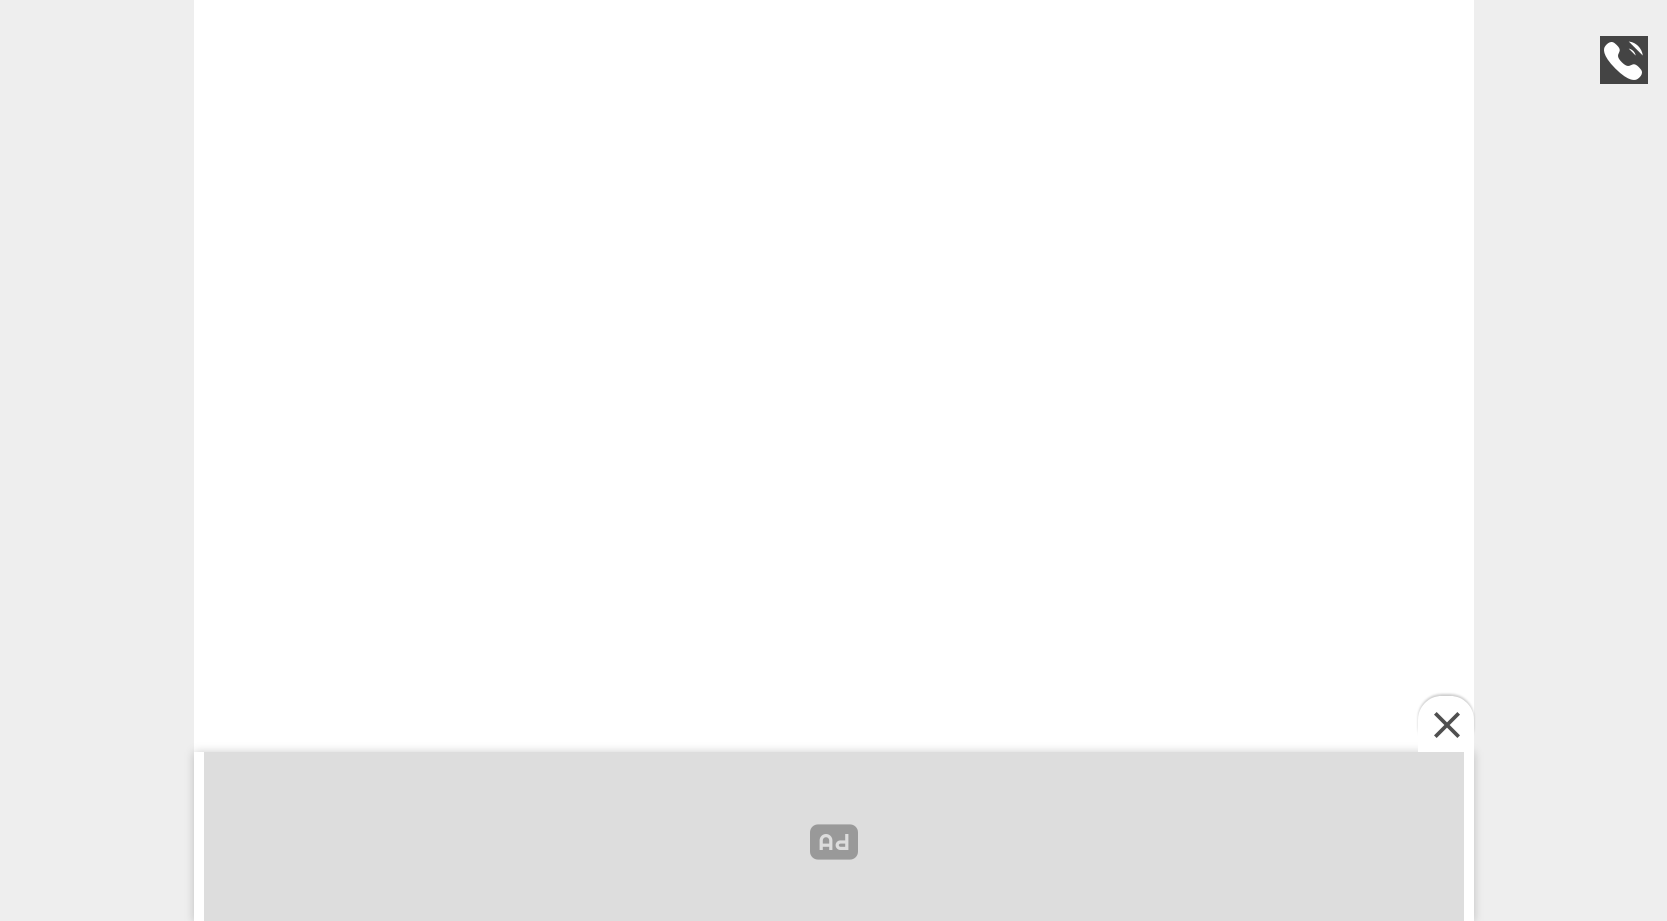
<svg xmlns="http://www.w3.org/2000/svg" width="1667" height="921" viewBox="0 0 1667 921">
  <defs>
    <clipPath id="clip1"><path d="M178 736H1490V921H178ZM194 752H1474V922H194Z" clip-rule="evenodd"/></clipPath>
  </defs>
  <rect width="100%" height="100%" fill="rgb(238,238,238)"/>
  <rect x="194" y="0" width="1280" height="921" fill="rgb(255,255,255)"/>
  <rect x="1600" y="36" width="48" height="48" fill="rgb(68,68,68)"/>
  <image x="1604" y="41" width="39" height="39" href="pic1.png"/>
  <g clip-path="url(#clip1)">
    <rect x="194" y="752" width="1280" height="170" fill="rgba(0,0,0,0.2)" filter="blur(5px)"/>
  </g>
  <rect x="204" y="752" width="1260" height="169" fill="rgb(221,221,221)"/>
  <rect x="1418" y="694" width="56" height="56" rx="24" fill="rgba(0,0,0,0.2)" filter="blur(1px)"/>
  <path d="M1442 696H1450C1463.5 696 1474 706.5 1474 720V752H1418V720C1418 706.5 1428.5 696 1442 696Z" fill="rgb(255,255,255)"/>
  <image x="1434" y="712" width="26" height="26" href="pic2.png"/>
  <image x="810" y="824" width="48" height="36" href="pic3.png"/>
</svg>
